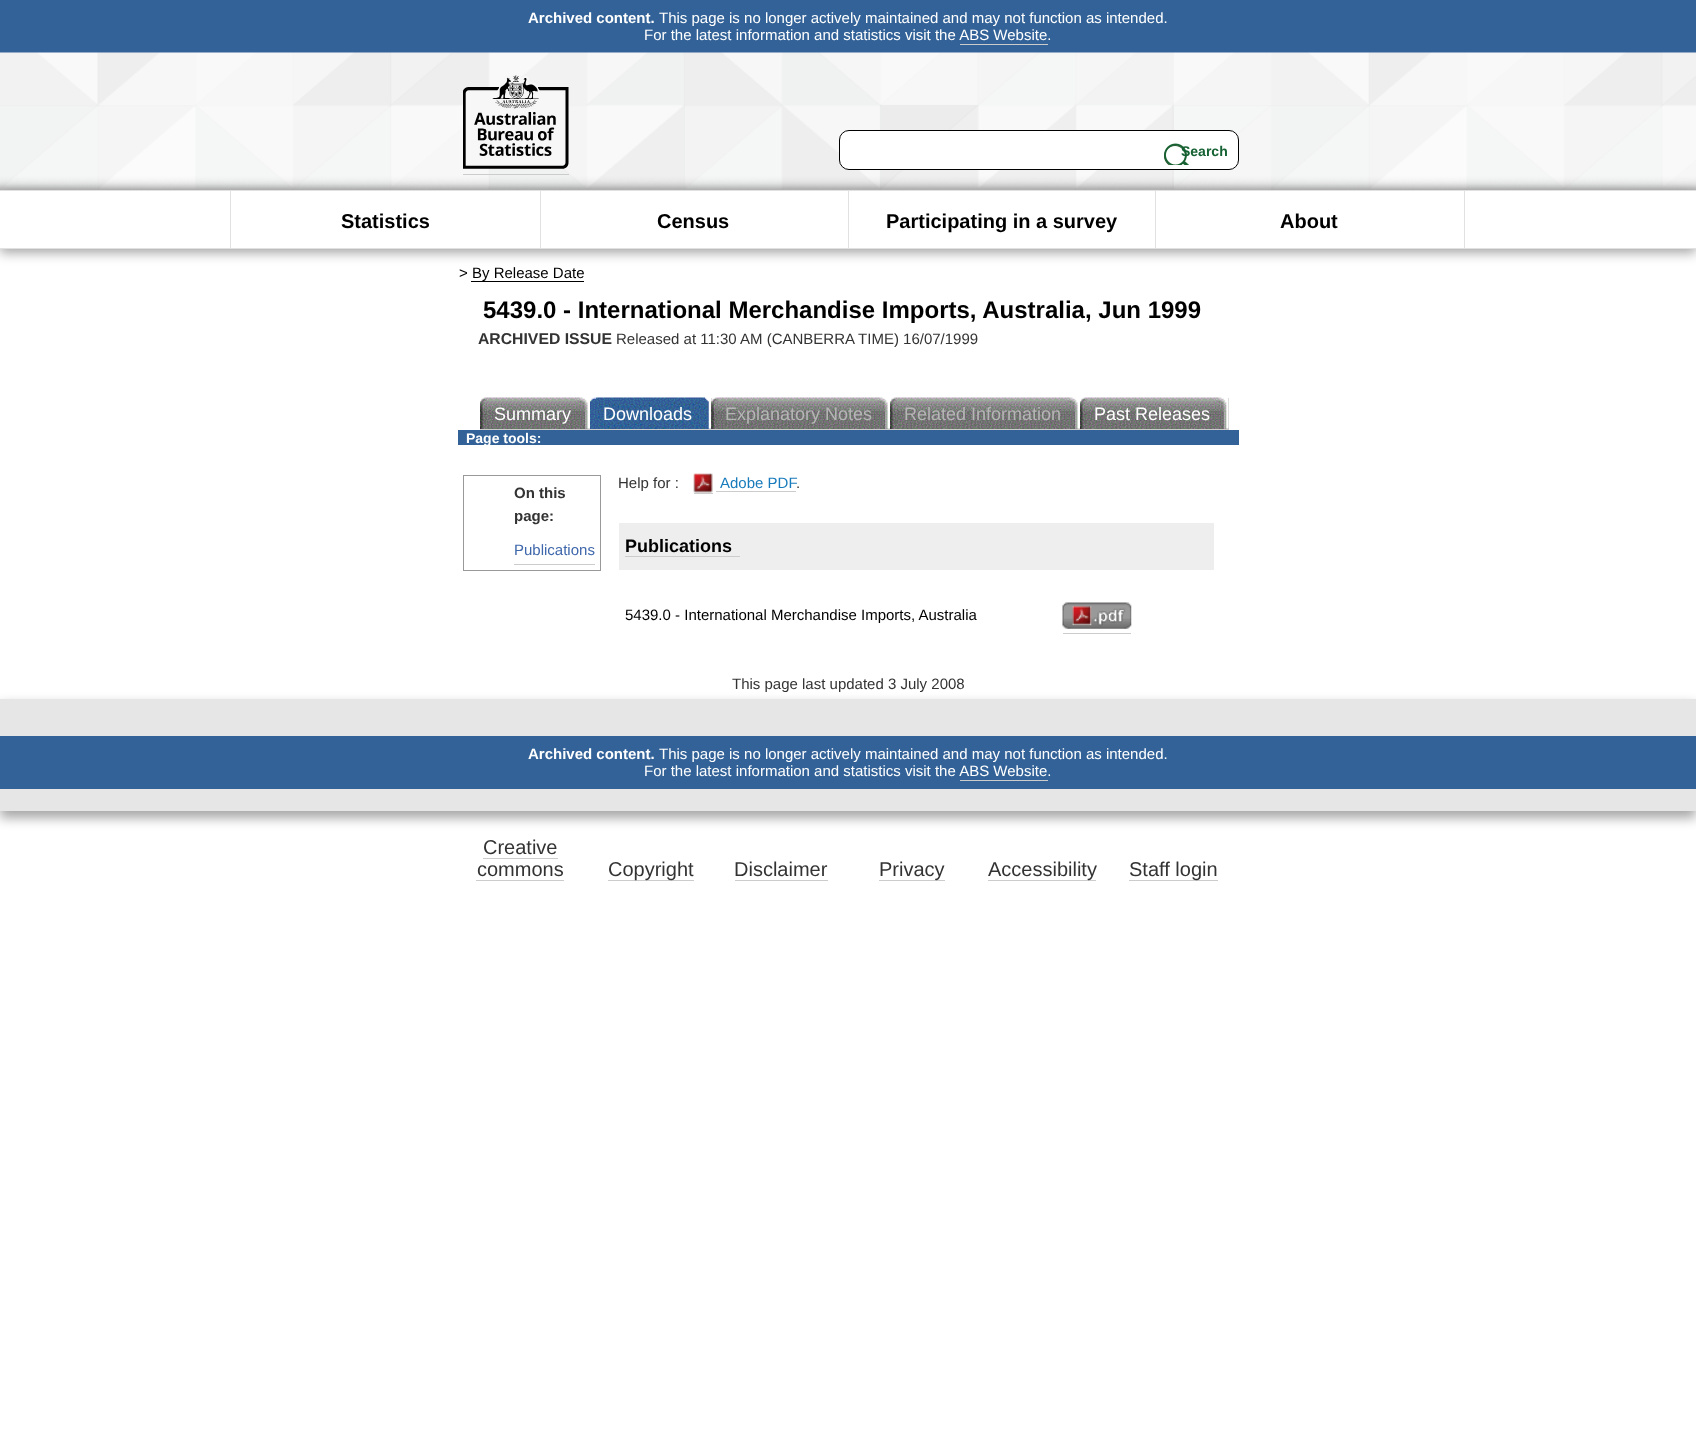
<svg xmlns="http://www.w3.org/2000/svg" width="1696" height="1453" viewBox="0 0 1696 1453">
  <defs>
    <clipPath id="clip1"><path d="M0 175H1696V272H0ZM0 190H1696V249H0Z" clip-rule="evenodd"/></clipPath>
  </defs>
  <rect width="100%" height="100%" fill="rgb(255,255,255)"/>
  <rect x="0" y="0" width="1696" height="53" fill="rgb(50,98,151)"/>
  <text x="528" y="23" font-family="Liberation Sans" font-size="15" font-weight="bold" fill="rgb(255,255,255)">Archived content.</text>
  <g font-family="Liberation Sans" font-size="15" fill="rgb(255,255,255)">
    <text x="659" y="23">This page is no longer actively maintained and may not function as intended.</text>
    <text x="644" y="40">For the latest information and statistics visit the ABS Website.</text>
  </g>
  <rect x="960" y="44" width="88" height="1" fill="rgb(204,204,204)"/>
  <image x="0" y="52" width="1696" height="138" href="pic1.png"/>
  <rect x="463" y="174" width="106" height="1" fill="rgb(204,204,204)"/>
  <image x="463" y="75" width="106" height="94" href="pic2.png"/>
  <rect x="839.5" y="130.5" width="399" height="39" rx="9.5" fill="rgb(255,255,255)" stroke="rgb(0,0,0)"/>
  <image x="1164" y="143" width="25" height="22" href="pic3.png"/>
  <text x="1181" y="156" font-family="Liberation Sans" font-size="14" font-weight="bold" fill="rgb(20,97,50)">Search</text>
  <g clip-path="url(#clip1)">
    <rect x="0" y="194" width="1696" height="59" fill="rgba(0,0,0,0.35)" filter="blur(6px)"/>
  </g>
  <rect x="0" y="190" width="1696" height="1" fill="rgb(225,225,225)"/>
  <rect x="0" y="248" width="1696" height="1" fill="rgb(225,225,225)"/>
  <rect x="540" y="191" width="1" height="57" fill="rgb(225,225,225)"/>
  <rect x="230" y="191" width="1" height="57" fill="rgb(225,225,225)"/>
  <text x="341" y="228" font-family="Liberation Sans" font-size="20" font-weight="bold" fill="rgb(0,0,0)">Statistics</text>
  <rect x="848" y="191" width="1" height="57" fill="rgb(225,225,225)"/>
  <text x="657" y="228" font-family="Liberation Sans" font-size="20" font-weight="bold" fill="rgb(0,0,0)">Census</text>
  <rect x="1155" y="191" width="1" height="57" fill="rgb(225,225,225)"/>
  <text x="886" y="228" font-family="Liberation Sans" font-size="20" font-weight="bold" fill="rgb(0,0,0)">Participating in a survey</text>
  <rect x="1464" y="191" width="1" height="57" fill="rgb(225,225,225)"/>
  <text x="1280" y="228" font-family="Liberation Sans" font-size="20" font-weight="bold" fill="rgb(0,0,0)">About</text>
  <text x="459" y="278" font-family="Liberation Sans" font-size="15" fill="rgb(0,0,0)">&gt;</text>
  <rect x="471" y="281" width="113" height="1" fill="rgb(0,0,0)"/>
  <text x="472" y="278" font-family="Liberation Sans" font-size="15" fill="rgb(0,0,0)">By Release Date</text>
  <text x="483" y="318" font-family="Liberation Sans" font-size="24" font-weight="bold" fill="rgb(0,0,0)">5439.0 - International Merchandise Imports, Australia, Jun 1999</text>
  <text x="478" y="344" font-family="Liberation Sans" font-size="15.75" font-weight="bold" fill="rgb(51,51,51)">ARCHIVED ISSUE</text>
  <text x="616" y="344" font-family="Liberation Sans" font-size="15" fill="rgb(51,51,51)">Released at 11:30 AM (CANBERRA TIME) 16/07/1999</text>
  <rect x="486" y="398" width="104" height="31" fill="rgb(119,119,119)"/>
  <image x="480" y="397" width="7" height="32" href="pic4.png"/>
  <rect x="480" y="429" width="749" height="1" fill="rgb(204,204,204)"/>
  <image x="486" y="397" width="104" height="32" href="pic5.png"/>
  <text x="494" y="420" font-family="Liberation Sans" font-size="18" fill="rgb(255,255,255)">Summary</text>
  <rect x="596" y="398" width="115" height="31" fill="rgb(50,98,151)"/>
  <image x="590" y="397" width="7" height="32" href="pic6.png"/>
  <image x="596" y="397" width="115" height="32" href="pic7.png"/>
  <text x="603" y="420" font-family="Liberation Sans" font-size="18" fill="rgb(255,255,255)">Downloads</text>
  <rect x="711" y="398" width="179" height="31" fill="rgb(119,119,119)"/>
  <image x="711" y="397" width="7" height="32" href="pic8.png"/>
  <image x="717" y="397" width="173" height="32" href="pic9.png"/>
  <text x="725" y="420" font-family="Liberation Sans" font-size="18" fill="rgb(182,182,182)">Explanatory Notes</text>
  <rect x="896" y="398" width="184" height="31" fill="rgb(119,119,119)"/>
  <image x="890" y="397" width="7" height="32" href="pic10.png"/>
  <image x="896" y="397" width="184" height="32" href="pic11.png"/>
  <text x="904" y="420" font-family="Liberation Sans" font-size="18" fill="rgb(182,182,182)">Related Information</text>
  <rect x="1086" y="398" width="143" height="31" fill="rgb(119,119,119)"/>
  <image x="1080" y="397" width="7" height="32" href="pic10.png"/>
  <image x="1086" y="397" width="143" height="32" href="pic12.png"/>
  <text x="1094" y="420" font-family="Liberation Sans" font-size="18" fill="rgb(255,255,255)">Past Releases</text>
  <rect x="458" y="430" width="781" height="15" fill="rgb(50,98,151)"/>
  <text x="466" y="443" font-family="Liberation Sans" font-size="14" font-weight="bold" fill="rgb(255,255,255)">Page tools:</text>
  <rect x="463.5" y="475.5" width="137" height="95" fill="none" stroke="rgb(153,153,153)"/>
  <g font-family="Liberation Sans" font-size="15" font-weight="bold" fill="rgb(51,51,51)">
    <text>
      <tspan x="514" y="498">On this</tspan>
      <tspan x="514" y="521">page:</tspan>
    </text>
  </g>
  <rect x="514" y="564" width="81" height="1" fill="rgb(204,204,204)"/>
  <text x="514" y="555" font-family="Liberation Sans" font-size="15" fill="rgb(63,103,171)">Publications</text>
  <text x="618" y="488" font-family="Liberation Sans" font-size="15" fill="rgb(51,51,51)">Help for :</text>
  <image x="693" y="473" width="20" height="20" href="pic13.png"/>
  <text x="720" y="488" font-family="Liberation Sans" font-size="15" fill="rgb(24,123,187)">Adobe PDF</text>
  <rect x="694" y="493" width="19" height="1" fill="rgb(204,204,204)"/>
  <rect x="716" y="491" width="80" height="1" fill="rgb(204,204,204)"/>
  <text x="796" y="488" font-family="Liberation Sans" font-size="15" fill="rgb(51,51,51)">.</text>
  <rect x="619" y="523" width="595" height="47" fill="rgb(238,238,238)"/>
  <text x="625" y="552" font-family="Liberation Sans" font-size="18" font-weight="bold" fill="rgb(0,0,0)">Publications</text>
  <rect x="625" y="556" width="115" height="1" fill="rgb(204,204,204)"/>
  <text x="625" y="620" font-family="Liberation Sans" font-size="15" fill="rgb(0,0,0)">5439.0 - International Merchandise Imports, Australia</text>
  <image x="1062" y="602" width="70" height="27" href="pic14.png"/>
  <rect x="1063" y="633" width="68" height="1" fill="rgb(204,204,204)"/>
  <rect x="0" y="705" width="1696" height="113" fill="rgba(0,0,0,0.35)" filter="blur(6px)"/>
  <text x="732" y="689" font-family="Liberation Sans" font-size="15" fill="rgb(51,51,51)">This page last updated 3 July 2008</text>
  <rect x="0" y="699" width="1696" height="112" fill="rgb(230,230,230)"/>
  <rect x="0" y="736" width="1696" height="53" fill="rgb(50,98,151)"/>
  <text x="528" y="759" font-family="Liberation Sans" font-size="15" font-weight="bold" fill="rgb(255,255,255)">Archived content.</text>
  <g font-family="Liberation Sans" font-size="15" fill="rgb(255,255,255)">
    <text x="659" y="759">This page is no longer actively maintained and may not function as intended.</text>
    <text x="644" y="776">For the latest information and statistics visit the ABS Website.</text>
  </g>
  <rect x="960" y="780" width="88" height="1" fill="rgb(204,204,204)"/>
  <text x="483" y="854" font-family="Liberation Sans" font-size="20" fill="rgb(51,51,51)">Creative</text>
  <rect x="483" y="858" width="75" height="1" fill="rgb(204,204,204)"/>
  <text x="477" y="876" font-family="Liberation Sans" font-size="20" fill="rgb(51,51,51)">commons</text>
  <rect x="476" y="880" width="88" height="1" fill="rgb(204,204,204)"/>
  <rect x="608" y="880" width="86" height="1" fill="rgb(204,204,204)"/>
  <g font-family="Liberation Sans" font-size="20" fill="rgb(51,51,51)">
    <text x="608" y="876">Copyright</text>
    <text x="734" y="876">Disclaimer</text>
  </g>
  <rect x="735" y="880" width="93" height="1" fill="rgb(204,204,204)"/>
  <rect x="879" y="880" width="66" height="1" fill="rgb(204,204,204)"/>
  <text x="879" y="876" font-family="Liberation Sans" font-size="20" fill="rgb(51,51,51)">Privacy</text>
  <rect x="988" y="880" width="108" height="1" fill="rgb(204,204,204)"/>
  <text x="988" y="876" font-family="Liberation Sans" font-size="20" fill="rgb(51,51,51)">Accessibility</text>
  <rect x="1129" y="880" width="89" height="1" fill="rgb(204,204,204)"/>
  <text x="1129" y="876" font-family="Liberation Sans" font-size="20" fill="rgb(51,51,51)">Staff login</text>
</svg>
